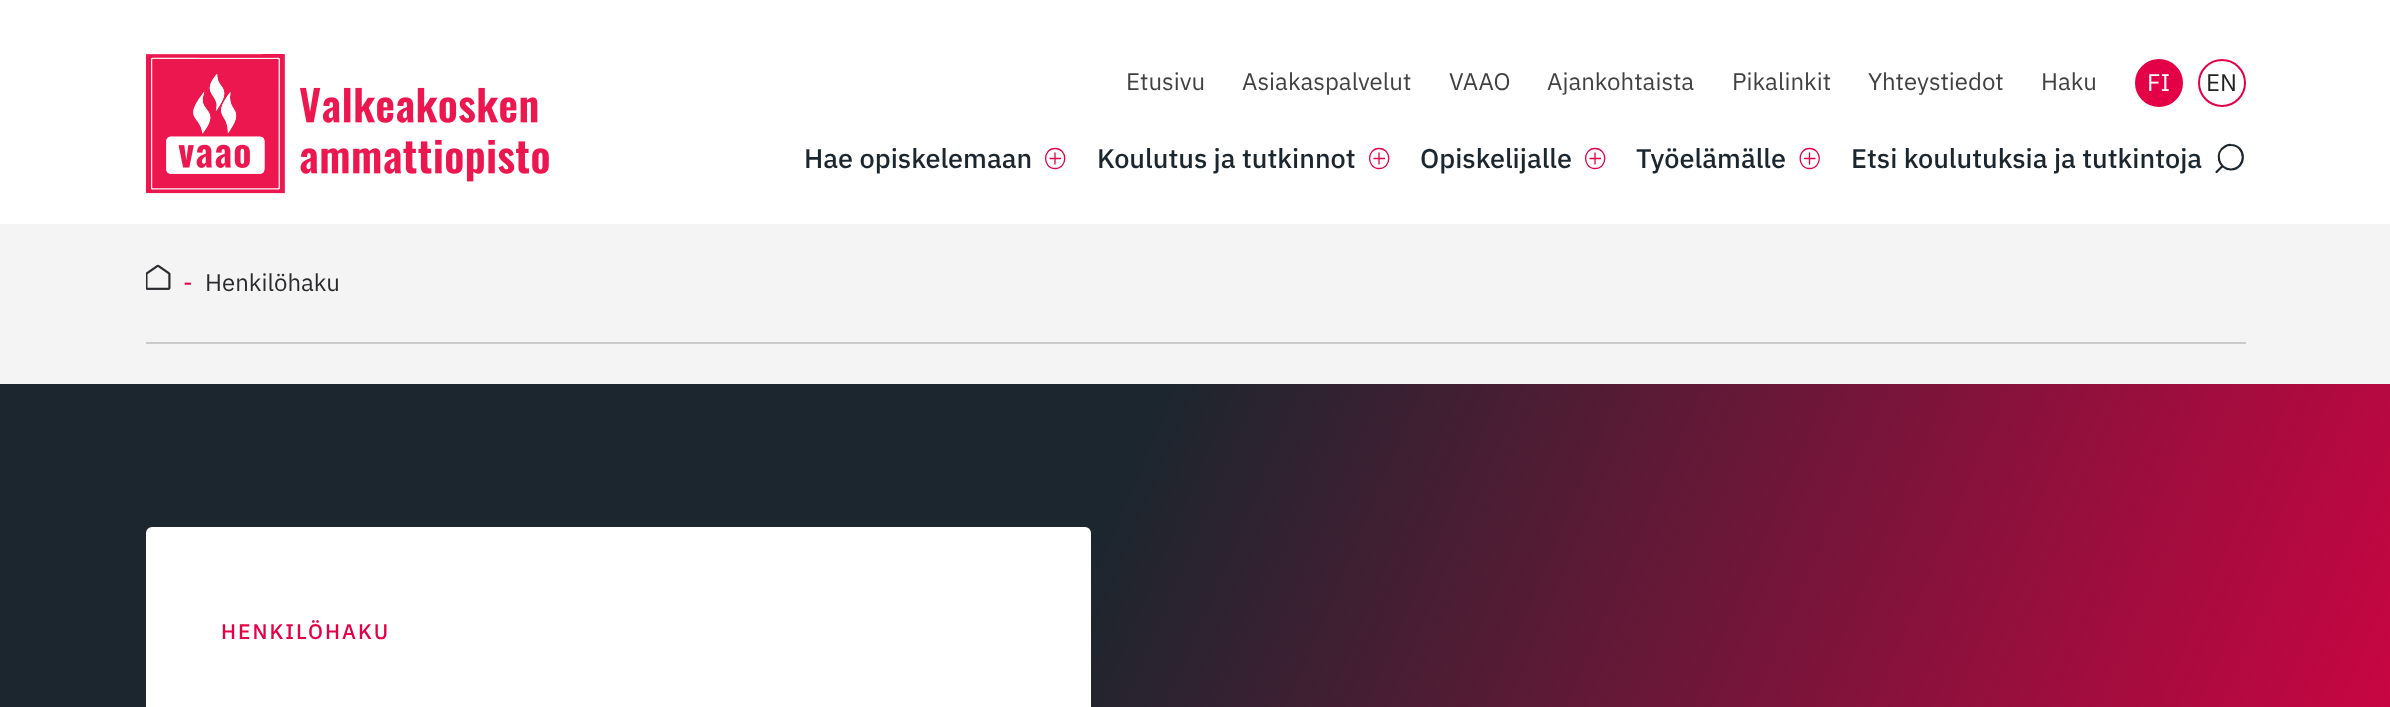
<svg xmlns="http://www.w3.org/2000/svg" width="2390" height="707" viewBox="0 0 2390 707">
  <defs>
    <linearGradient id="g1" gradientUnits="userSpaceOnUse" x1="19" y1="340" x2="2372" y2="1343"><stop offset="0.42" stop-color="rgb(28,38,46)"/><stop offset="0.99" stop-color="rgb(228,0,70)"/></linearGradient>
  </defs>
  <rect width="100%" height="100%" fill="rgb(255,255,255)"/>
  <image x="146" y="54" width="403" height="140" href="pic1.png"/>
  <g font-family="IBM Plex Sans" font-size="24" fill="rgb(65,65,65)">
    <text x="1126" y="90">Etusivu</text>
    <text x="1242" y="90">Asiakaspalvelut</text>
    <text x="1449" y="90">VAAO</text>
    <text x="1547" y="90">Ajankohtaista</text>
    <text x="1732" y="90">Pikalinkit</text>
    <text x="1868" y="90">Yhteystiedot</text>
    <text x="2041" y="90">Haku</text>
  </g>
  <circle cx="2159" cy="83" r="23" fill="rgb(228,0,70)" stroke="rgb(228,0,70)" stroke-width="2"/>
  <text x="2147" y="91" font-family="IBM Plex Sans" font-size="24" fill="rgb(255,255,255)">FI</text>
  <circle cx="2222" cy="83" r="23" fill="none" stroke="rgb(228,0,70)" stroke-width="2"/>
  <text x="2206" y="91" font-family="IBM Plex Sans" font-size="24" fill="rgb(34,34,34)">EN</text>
  <text x="804" y="168" font-family="IBM Plex Sans" font-size="27" font-weight="500" fill="rgb(28,38,46)">Hae opiskelemaan</text>
  <path d="M1055 168.5C1068 168.5 1068 148.5 1055 148.5C1042.5 148.5 1042.5 168.5 1055 168.5ZM1055 153V164M1060.5 158.5H1050" fill="none" stroke="rgb(228,0,70)" stroke-width="1.3" stroke-linecap="round" stroke-linejoin="round"/>
  <text x="1097" y="168" font-family="IBM Plex Sans" font-size="27" font-weight="500" fill="rgb(28,38,46)">Koulutus ja tutkinnot</text>
  <path d="M1379 168.5C1392 168.5 1392 148.5 1379 148.5C1366.5 148.5 1366.5 168.5 1379 168.5ZM1379 153V164M1384.5 158.5H1374" fill="none" stroke="rgb(228,0,70)" stroke-width="1.3" stroke-linecap="round" stroke-linejoin="round"/>
  <text x="1420" y="168" font-family="IBM Plex Sans" font-size="27" font-weight="500" fill="rgb(28,38,46)">Opiskelijalle</text>
  <path d="M1595 168.5C1608 168.5 1608 148.5 1595 148.5C1582.5 148.5 1582.5 168.5 1595 168.5ZM1595 153V164M1600.5 158.5H1590" fill="none" stroke="rgb(228,0,70)" stroke-width="1.3" stroke-linecap="round" stroke-linejoin="round"/>
  <text x="1636" y="168" font-family="IBM Plex Sans" font-size="27" font-weight="500" fill="rgb(28,38,46)">Työelämälle</text>
  <path d="M1809.5 168.5C1822.5 168.5 1822.5 148.5 1809.5 148.5C1797 148.5 1797 168.5 1809.5 168.5ZM1809.5 153V164M1815 158.5H1804.5" fill="none" stroke="rgb(228,0,70)" stroke-width="1.3" stroke-linecap="round" stroke-linejoin="round"/>
  <text x="1851" y="168" font-family="IBM Plex Sans" font-size="27" font-weight="500" fill="rgb(28,38,46)">Etsi koulutuksia ja tutkintoja</text>
  <path d="M2231 169.5C2218.5 169.5 2214 152.5 2225 146.5C2226.5 145.5 2229 144.5 2231 145C2247 145.5 2246.5 169 2231 169.5ZM2216.5 172L2222.5 166" fill="none" stroke="rgb(28,38,46)" stroke-width="2.2" stroke-linecap="round" stroke-linejoin="round"/>
  <rect x="0" y="224" width="2390" height="160" fill="rgb(244,244,244)"/>
  <rect x="146" y="342" width="2100" height="2" fill="rgb(203,203,203)"/>
  <image x="146" y="264" width="25" height="26" href="pic2.png"/>
  <text x="183" y="291" font-family="IBM Plex Sans" font-size="24" fill="rgb(228,0,70)">-</text>
  <text x="205" y="291" font-family="IBM Plex Sans" font-size="24" fill="rgb(43,43,47)">Henkilöhaku</text>
  <rect x="0" y="384" width="2390" height="323" fill="url(#g1)"/>
  <rect x="146" y="527" width="945" height="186" rx="6" fill="rgb(255,255,255)"/>
  <text x="221" y="639" font-family="IBM Plex Sans" font-size="21" font-weight="500" letter-spacing="2" fill="rgb(228,0,70)">HENKILÖHAKU</text>
</svg>
